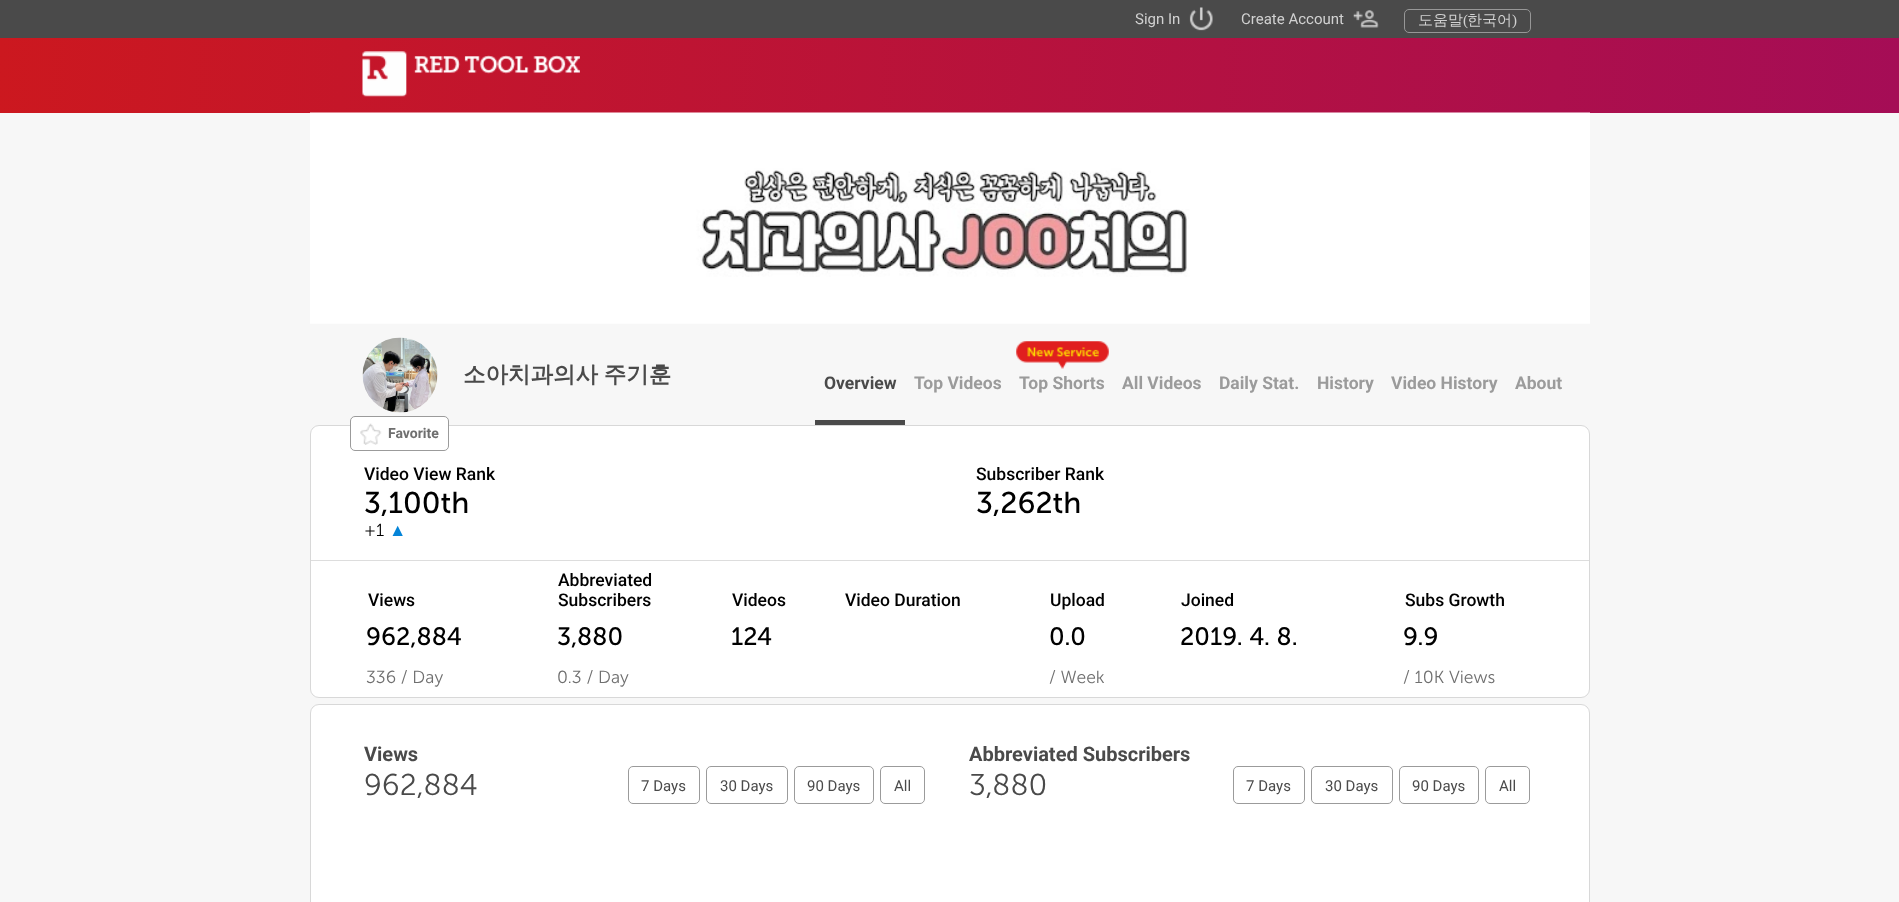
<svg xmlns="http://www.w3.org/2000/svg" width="1899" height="902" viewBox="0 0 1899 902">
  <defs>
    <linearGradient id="g1" gradientUnits="userSpaceOnUse" x1="0.6" y1="25" x2="1899" y2="125"><stop offset="0" stop-color="rgb(204,24,31)"/><stop offset="1" stop-color="rgb(165,13,86)"/></linearGradient>
  </defs>
  <rect width="100%" height="100%" fill="rgb(247,247,247)"/>
  <rect x="0" y="0" width="1899" height="38" fill="rgb(74,74,74)"/>
  <image x="1189" y="7" width="24" height="24" href="pic1.png"/>
  <text x="1135" y="24" font-family="Roboto" font-size="15" fill="rgb(209,209,209)">Sign In</text>
  <image x="1353" y="10" width="26" height="18" href="pic2.png"/>
  <text x="1241" y="24" font-family="Roboto" font-size="15" fill="rgb(209,209,209)">Create Account</text>
  <rect x="1404.5" y="9.5" width="126" height="23" rx="4.5" fill="none" stroke="rgb(151,151,151)"/>
  <text x="1418" y="25" font-family="WenQuanYi Zen Hei" font-size="15" font-weight="500" fill="rgb(209,209,209)">도움말</text>
  <text x="1463" y="25" font-family="Liberation Serif" font-size="15" fill="rgb(209,209,209)">(</text>
  <text x="1467" y="25" font-family="WenQuanYi Zen Hei" font-size="15" font-weight="500" fill="rgb(209,209,209)">한국어</text>
  <text x="1512" y="25" font-family="Liberation Serif" font-size="15" fill="rgb(209,209,209)">)</text>
  <rect x="0" y="38" width="1899" height="75" fill="url(#g1)"/>
  <image x="362" y="51" width="218" height="46" href="pic3.png"/>
  <image x="310" y="112" width="1280" height="212" href="pic4.png"/>
  <image x="362" y="337" width="76" height="76" href="pic5.png"/>
  <text x="463" y="382" word-spacing="-1" font-family="WenQuanYi Zen Hei" font-size="22.5" font-weight="bold" fill="rgb(74,74,74)">소아치과의사 주기훈</text>
  <rect x="815" y="420" width="90" height="5" fill="rgb(74,74,74)"/>
  <text x="824" y="389" font-family="Roboto" font-size="17.5" font-weight="bold" fill="rgb(74,74,74)">Overview</text>
  <g font-family="Roboto" font-size="17.5" font-weight="bold" fill="rgb(155,155,155)">
    <text x="914" y="389">Top Videos</text>
    <text x="1019" y="389">Top Shorts</text>
    <text x="1122" y="389">All Videos</text>
  </g>
  <image x="1016" y="341" width="93" height="28" href="pic6.png"/>
  <g font-family="Roboto" font-size="17.5" font-weight="bold" fill="rgb(155,155,155)">
    <text x="1219" y="389">Daily Stat.</text>
    <text x="1317" y="389">History</text>
    <text x="1391" y="389">Video History</text>
    <text x="1515" y="389">About</text>
  </g>
  <rect x="310.5" y="425.5" width="1279" height="272" rx="8.5" fill="rgb(255,255,255)" stroke="rgb(216,216,216)"/>
  <rect x="350.5" y="416.5" width="98" height="34" rx="4.5" fill="rgb(255,255,255)" stroke="rgb(155,155,155)"/>
  <image x="360" y="423" width="22" height="22" href="pic7.png"/>
  <text x="388" y="438" font-family="Roboto" font-size="14" font-weight="bold" fill="rgb(111,111,111)">Favorite</text>
  <rect x="311" y="560" width="1278" height="1" fill="rgb(221,221,221)"/>
  <text x="364" y="480" font-family="Roboto" font-size="17.5" font-weight="500" fill="rgb(0,0,0)">Video View Rank</text>
  <text x="364" y="513" font-family="'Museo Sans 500'" font-size="30" fill="rgb(0,0,0)">3,100th</text>
  <text x="364" y="536" font-family="'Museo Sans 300'" font-size="17.5" font-weight="300" fill="rgb(0,0,0)">+1</text>
  <text x="389" y="536" font-family="Liberation Serif" font-size="17.5" fill="rgb(4,132,216)">▲</text>
  <text x="976" y="480" font-family="Roboto" font-size="17.5" font-weight="500" fill="rgb(0,0,0)">Subscriber Rank</text>
  <text x="976" y="513" font-family="'Museo Sans 500'" font-size="30" fill="rgb(0,0,0)">3,262th</text>
  <g font-family="Roboto" font-size="17.5" font-weight="500" fill="rgb(0,0,0)">
    <text x="368" y="606">Views</text>
    <text>
      <tspan x="558" y="586">Abbreviated</tspan>
      <tspan x="558" y="606">Subscribers</tspan>
    </text>
    <text x="732" y="606">Videos</text>
    <text x="845" y="606">Video Duration</text>
    <text x="1050" y="606">Upload</text>
    <text x="1181" y="606">Joined</text>
    <text x="1405" y="606">Subs Growth</text>
  </g>
  <g font-family="'Museo Sans 500'" font-size="25" fill="rgb(0,0,0)">
    <text x="366" y="645">962,884</text>
    <text x="557" y="645">3,880</text>
    <text x="731" y="645">124</text>
    <text x="1049" y="645">0.0</text>
    <text x="1180" y="645">2019. 4. 8.</text>
    <text x="1403" y="645">9.9</text>
  </g>
  <g font-family="'Museo Sans 300'" font-size="17.5" font-weight="300" fill="rgb(111,111,111)">
    <text x="366" y="683">336 / Day</text>
    <text x="557" y="683">0.3 / Day</text>
    <text x="1049" y="683">/ Week</text>
    <text x="1403" y="683">/ 10K Views</text>
  </g>
  <rect x="310.5" y="704.5" width="1279" height="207" rx="8.5" fill="rgb(255,255,255)" stroke="rgb(216,216,216)"/>
  <text x="364" y="761" font-family="Roboto" font-size="20" font-weight="bold" fill="rgb(74,74,74)">Views</text>
  <text x="364" y="795" font-family="'Museo Sans 300'" font-size="30" font-weight="300" fill="rgb(74,74,74)">962,884</text>
  <rect x="628.5" y="766.5" width="71" height="37" rx="4.5" fill="none" stroke="rgb(155,155,155)"/>
  <text x="641" y="791" font-family="Roboto" font-size="15" fill="rgb(74,74,74)">7 Days</text>
  <rect x="706.5" y="766.5" width="81" height="37" rx="4.5" fill="none" stroke="rgb(155,155,155)"/>
  <text x="720" y="791" font-family="Roboto" font-size="15" fill="rgb(74,74,74)">30 Days</text>
  <rect x="794.5" y="766.5" width="79" height="37" rx="4.5" fill="none" stroke="rgb(155,155,155)"/>
  <text x="807" y="791" font-family="Roboto" font-size="15" fill="rgb(74,74,74)">90 Days</text>
  <rect x="880.5" y="766.5" width="44" height="37" rx="4.5" fill="none" stroke="rgb(155,155,155)"/>
  <text x="894" y="791" font-family="Roboto" font-size="15" fill="rgb(74,74,74)">All</text>
  <text x="969" y="761" font-family="Roboto" font-size="20" font-weight="bold" fill="rgb(74,74,74)">Abbreviated Subscribers</text>
  <text x="969" y="795" font-family="'Museo Sans 300'" font-size="30" font-weight="300" fill="rgb(74,74,74)">3,880</text>
  <rect x="1233.5" y="766.5" width="71" height="37" rx="4.5" fill="none" stroke="rgb(155,155,155)"/>
  <text x="1246" y="791" font-family="Roboto" font-size="15" fill="rgb(74,74,74)">7 Days</text>
  <rect x="1311.5" y="766.5" width="81" height="37" rx="4.5" fill="none" stroke="rgb(155,155,155)"/>
  <text x="1325" y="791" font-family="Roboto" font-size="15" fill="rgb(74,74,74)">30 Days</text>
  <rect x="1399.5" y="766.5" width="79" height="37" rx="4.5" fill="none" stroke="rgb(155,155,155)"/>
  <text x="1412" y="791" font-family="Roboto" font-size="15" fill="rgb(74,74,74)">90 Days</text>
  <rect x="1485.5" y="766.5" width="44" height="37" rx="4.5" fill="none" stroke="rgb(155,155,155)"/>
  <text x="1499" y="791" font-family="Roboto" font-size="15" fill="rgb(74,74,74)">All</text>
</svg>
